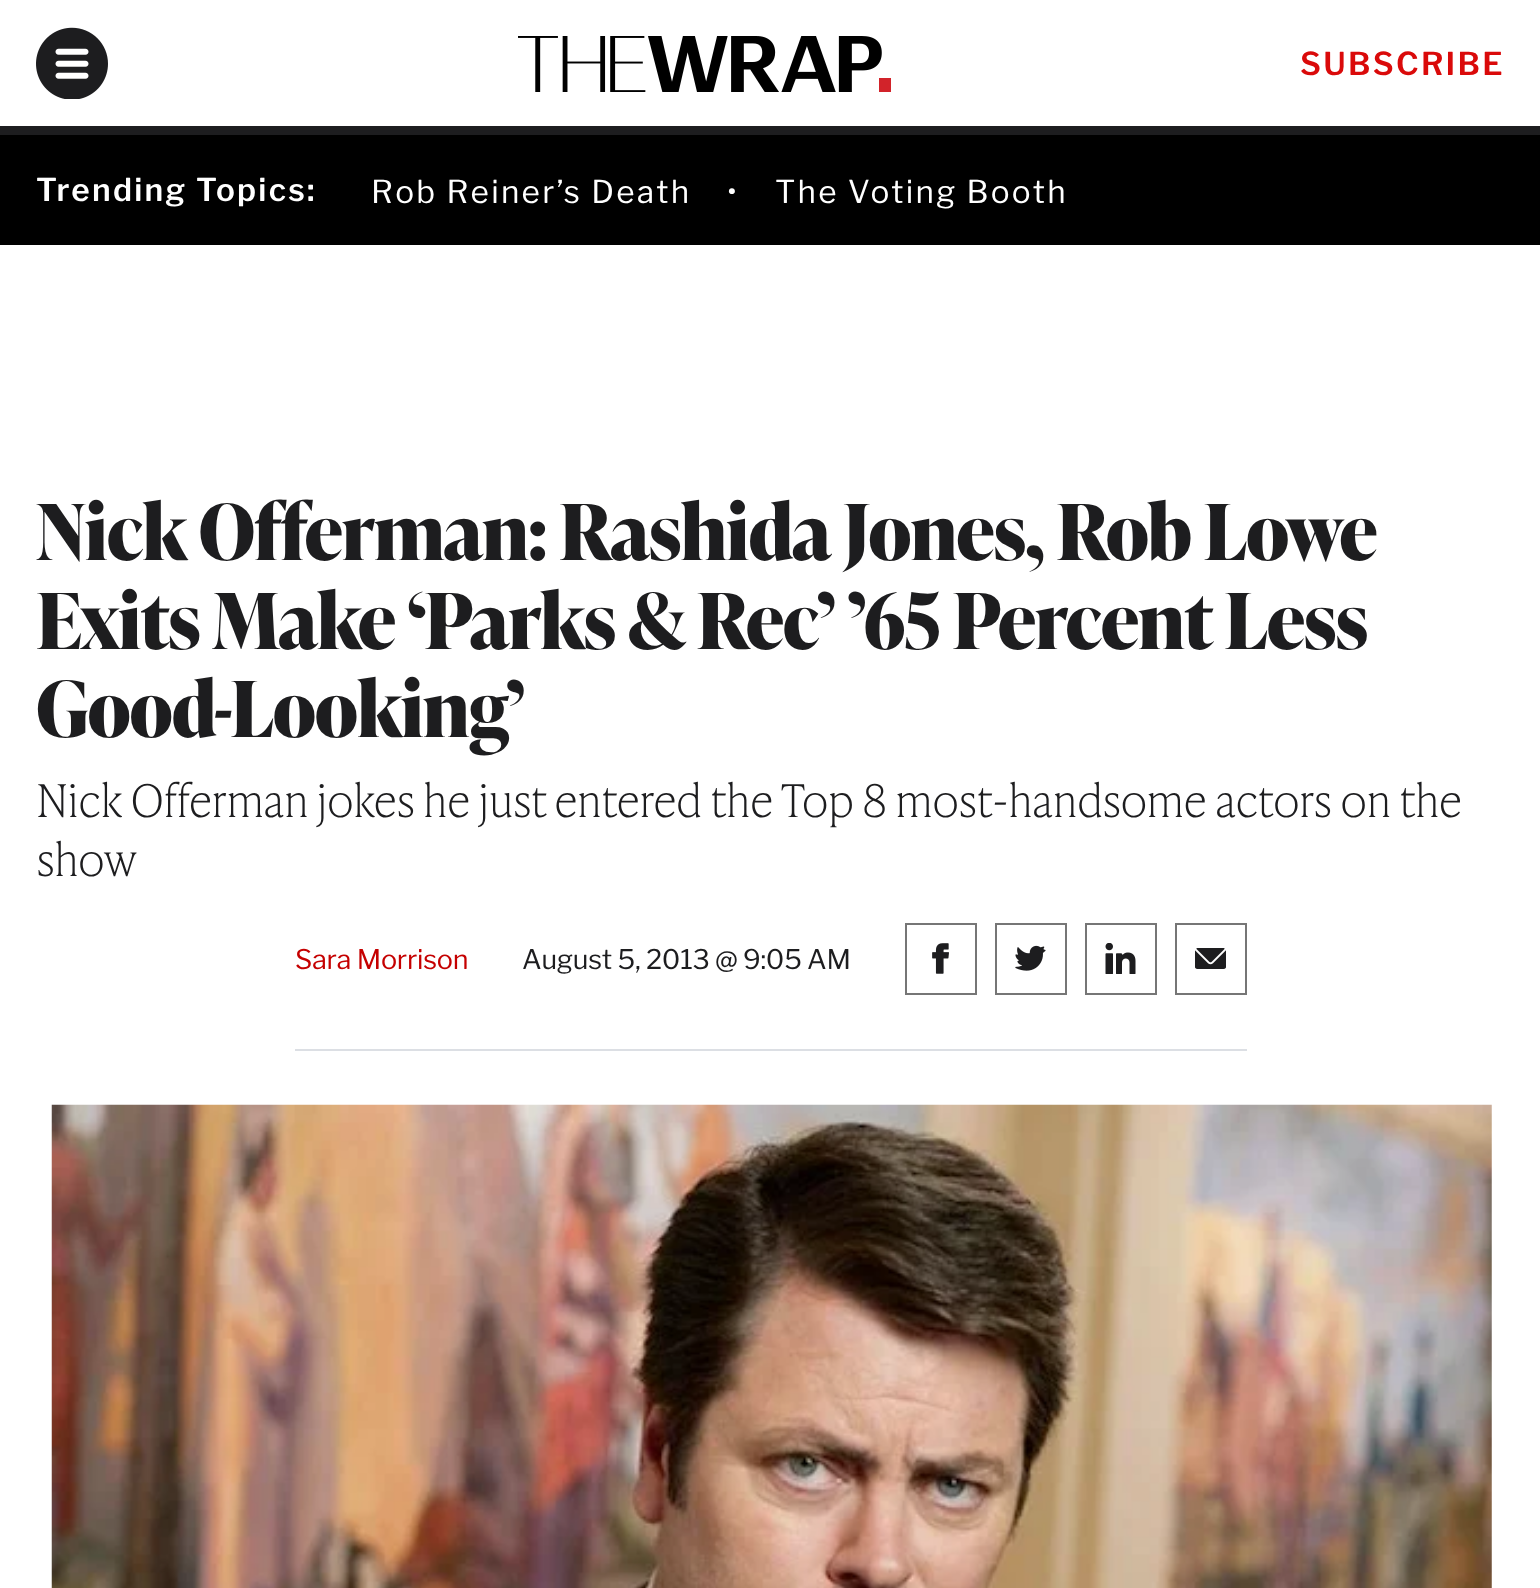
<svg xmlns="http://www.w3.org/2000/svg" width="1540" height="1588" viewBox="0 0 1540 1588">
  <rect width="100%" height="100%" fill="rgb(255,255,255)"/>
  <rect x="0" y="126" width="1540" height="9" fill="rgb(29,29,31)"/>
  <image x="36" y="27" width="72" height="72" href="pic1.png"/>
  <image x="518" y="36" width="373" height="56" href="pic2.png"/>
  <text x="1300" y="75" font-family="Libre Franklin" font-size="31.5" font-weight="600" letter-spacing="2.25" fill="rgb(218,10,10)">SUBSCRIBE</text>
  <rect x="0" y="135" width="1540" height="110" fill="rgb(0,0,0)"/>
  <text x="36" y="201" font-family="Libre Franklin" font-size="31.5" font-weight="600" letter-spacing="2.25" fill="rgb(255,255,255)">Trending Topics:</text>
  <g font-family="Libre Franklin" font-size="31.5" letter-spacing="2.25" fill="rgb(255,255,255)">
    <text x="371" y="203">Rob Reiner’s Death</text>
    <text x="727" y="203">•</text>
    <text x="775" y="203">The Voting Booth</text>
  </g>
  <g font-family="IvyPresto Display" font-size="77.1" font-weight="bold" letter-spacing="-1.12" fill="rgb(29,29,31)">
    <text>
      <tspan x="36" y="560">Nick Offerman: Rashida Jones, Rob Lowe</tspan>
      <tspan x="36" y="649">Exits Make ‘Parks &amp; Rec’ ’65 Percent Less</tspan>
      <tspan x="36" y="737">Good-Looking’</tspan>
    </text>
  </g>
  <g font-family="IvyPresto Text" font-size="45" font-weight="100" letter-spacing="-1.12" fill="rgb(29,29,31)">
    <text>
      <tspan x="36" y="817">Nick Offerman jokes he just entered the Top 8 most-handsome actors on the</tspan>
      <tspan x="36" y="876">show</tspan>
    </text>
  </g>
  <rect x="295" y="1049" width="952" height="2" fill="rgb(220,223,228)"/>
  <text x="295" y="969" font-family="Libre Franklin" font-size="27" letter-spacing="-0.25" fill="rgb(197,0,0)">Sara Morrison</text>
  <text x="522" y="969" font-family="Libre Franklin" font-size="27" letter-spacing="-0.25" fill="rgb(29,29,31)">August 5, 2013 @ 9:05 AM</text>
  <rect x="906" y="924" width="70" height="70" fill="none" stroke="rgb(118,118,118)" stroke-width="2"/>
  <image x="932" y="943" width="17" height="31" href="pic3.png"/>
  <rect x="996" y="924" width="70" height="70" fill="none" stroke="rgb(118,118,118)" stroke-width="2"/>
  <image x="1015" y="945" width="31" height="26" href="pic4.png"/>
  <rect x="1086" y="924" width="70" height="70" fill="none" stroke="rgb(118,118,118)" stroke-width="2"/>
  <image x="1105" y="943" width="31" height="31" href="pic5.png"/>
  <rect x="1176" y="924" width="70" height="70" fill="none" stroke="rgb(118,118,118)" stroke-width="2"/>
  <image x="1195" y="948" width="31" height="21" href="pic6.png"/>
  <image x="51" y="1104" width="1441" height="484" href="pic7.png"/>
</svg>
